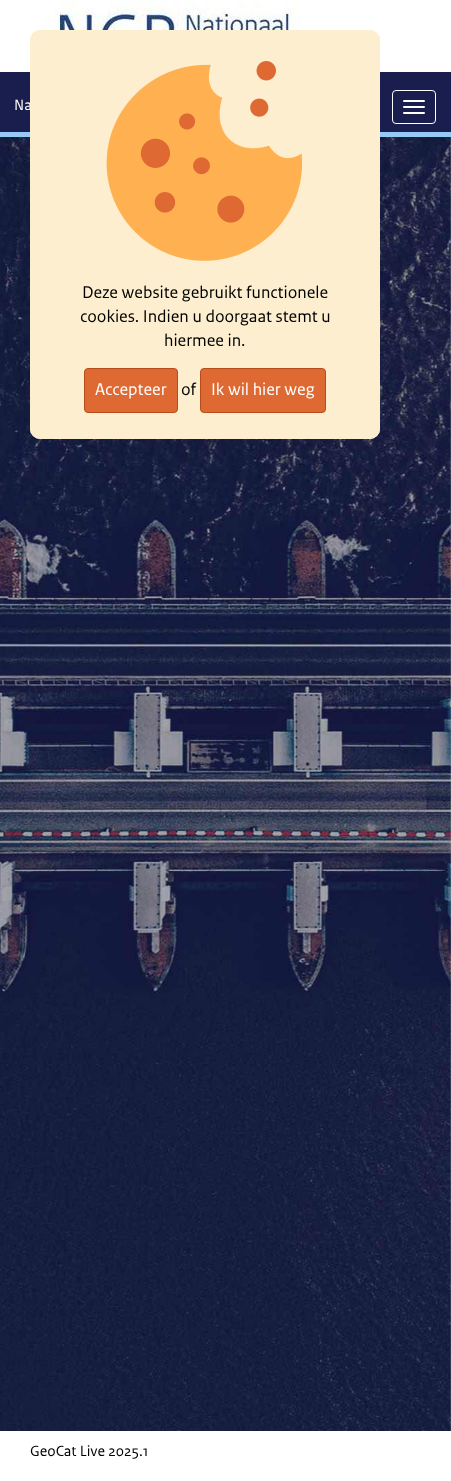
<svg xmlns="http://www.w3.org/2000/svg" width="451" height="1481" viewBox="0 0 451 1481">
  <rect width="100%" height="100%" fill="rgb(255,255,255)"/>
  <image x="0" y="137" width="451" height="1294" href="pic1.png"/>
  <image x="46" y="0" width="268" height="30" href="pic2.png"/>
  <rect x="0" y="72" width="451" height="60" fill="rgb(26,30,79)"/>
  <rect x="0" y="132" width="451" height="5" fill="rgb(152,200,246)"/>
  <text x="14" y="110" font-family="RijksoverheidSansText" font-size="14" fill="rgb(255,255,255)">Na</text>
  <rect x="392.5" y="90.5" width="43" height="33" rx="3.5" fill="none" stroke="rgb(255,255,255)"/>
  <rect x="403" y="100" width="22" height="2" rx="1" fill="rgb(255,255,255)"/>
  <rect x="403" y="106" width="22" height="2" rx="1" fill="rgb(255,255,255)"/>
  <rect x="403" y="112" width="22" height="2" rx="1" fill="rgb(255,255,255)"/>
  <rect x="30" y="30" width="350" height="409" rx="10" fill="rgb(252,238,207)"/>
  <image x="106" y="61" width="197" height="200" href="pic3.png"/>
  <rect x="30.5" y="30.5" width="349" height="408" rx="9.5" fill="none" stroke="rgb(252,238,207)"/>
  <g font-family="RijksoverheidSansText" font-size="16" fill="rgb(0,0,0)">
    <text x="82" y="298">Deze website gebruikt functionele</text>
    <text x="80" y="322">cookies. Indien u doorgaat stemt u</text>
    <text x="164" y="346">hiermee in.</text>
  </g>
  <rect x="84.5" y="368.5" width="93" height="44" rx="3.5" fill="rgb(222,105,50)" stroke="rgb(183,77,27)"/>
  <text x="95" y="395" font-family="RijksoverheidSansText" font-size="16" fill="rgb(255,255,255)">Accepteer</text>
  <text x="181" y="395" font-family="RijksoverheidSansText" font-size="16" fill="rgb(0,0,0)">of</text>
  <rect x="200.5" y="368.5" width="125" height="44" rx="3.5" fill="rgb(222,105,50)" stroke="rgb(183,77,27)"/>
  <text x="211" y="395" font-family="RijksoverheidSansText" font-size="16" fill="rgb(255,255,255)">Ik wil hier weg</text>
  <text x="30" y="1456" font-family="RijksoverheidSansText" font-size="14" fill="rgb(0,0,0)">GeoCat Live 2025.1</text>
</svg>
